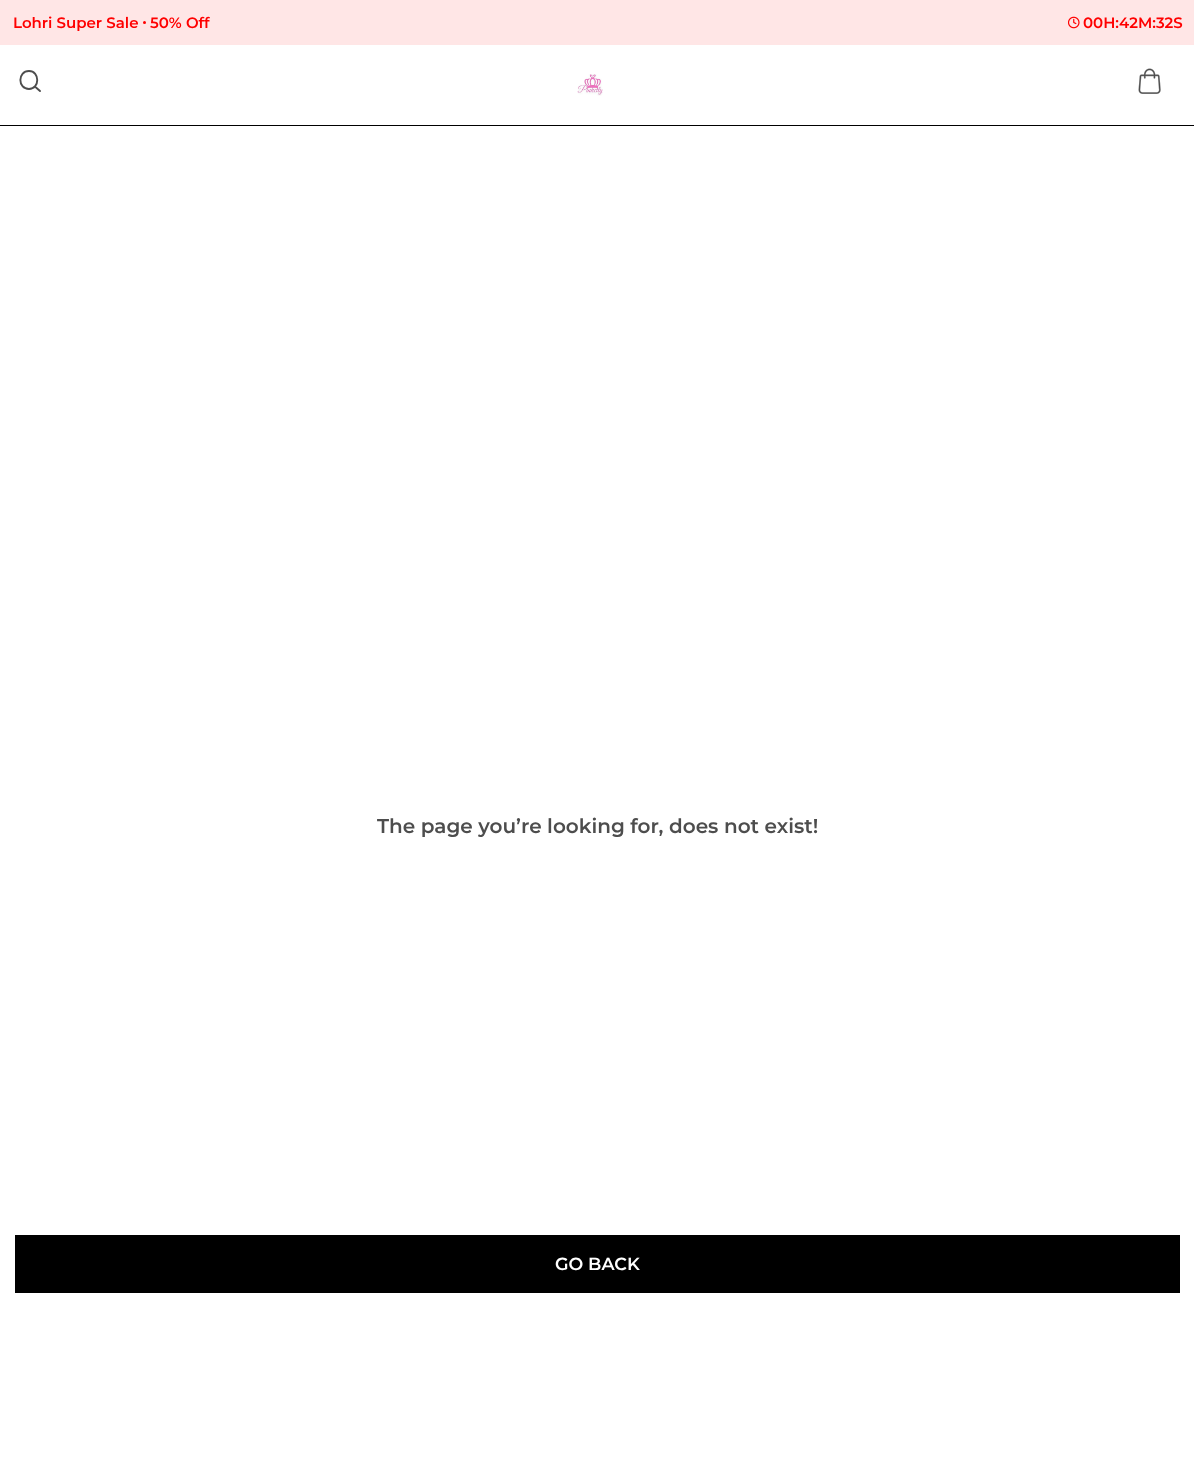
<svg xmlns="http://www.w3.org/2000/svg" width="1194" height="1476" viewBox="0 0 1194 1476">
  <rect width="100%" height="100%" fill="rgb(255,255,255)"/>
  <rect x="0" y="125" width="1194" height="1" fill="rgb(0,0,0)"/>
  <rect x="0" y="0" width="1194" height="45" fill="rgb(255,230,230)"/>
  <text x="13" y="28" font-family="Montserrat" font-size="15" font-weight="600" fill="rgb(255,0,0)">Lohri Super Sale</text>
  <circle cx="144.5" cy="22.5" r="1.5" fill="rgb(255,0,0)"/>
  <text x="150" y="28" font-family="Montserrat" font-size="15" font-weight="600" fill="rgb(255,0,0)">50% Off</text>
  <image x="1068" y="16" width="12" height="13" href="pic1.png"/>
  <text x="1083" y="28" font-family="Montserrat" font-size="15" font-weight="600" fill="rgb(255,0,0)">00H:42M:32S</text>
  <path d="M29 89C40 89 40 71 29 71C17.5 71 17.5 89 29 89ZM40 91L36 87.5" fill="none" stroke="rgb(77,77,77)" stroke-width="1.9" stroke-linecap="round" stroke-linejoin="round"/>
  <image x="577" y="74" width="26" height="22" href="pic2.png"/>
  <image x="1138" y="68" width="23" height="26" href="pic3.png"/>
  <text x="377" y="833" font-family="Montserrat" font-size="20" font-weight="600" fill="rgb(77,77,77)">The page you’re looking for, does not exist!</text>
  <rect x="15" y="1235" width="1165" height="58" fill="rgb(0,0,0)"/>
  <text x="555" y="1270" font-family="Montserrat" font-size="17.5" font-weight="600" fill="rgb(255,255,255)">GO BACK</text>
</svg>
